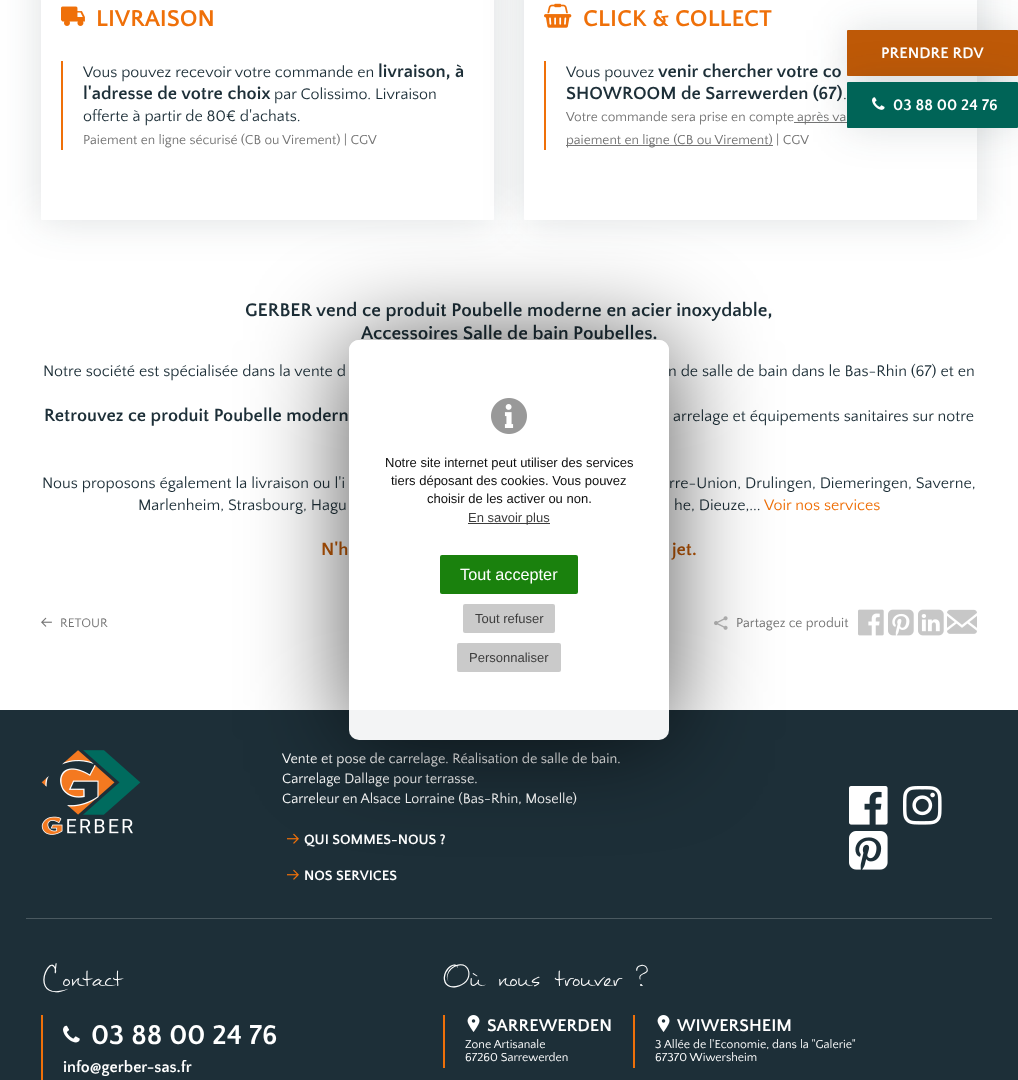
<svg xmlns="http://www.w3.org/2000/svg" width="1018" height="1080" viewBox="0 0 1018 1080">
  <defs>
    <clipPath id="clip1"><path d="M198 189H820V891H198ZM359 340H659C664.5 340 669 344.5 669 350V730C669 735.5 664.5 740 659 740H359C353.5 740 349 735.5 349 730V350C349 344.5 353.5 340 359 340Z" clip-rule="evenodd"/></clipPath>
  </defs>
  <rect width="100%" height="100%" fill="rgb(255,255,255)"/>
  <rect x="41" y="-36" width="453" height="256" rx="1" fill="rgba(29,47,56,0.15)" filter="blur(20px)"/>
  <rect x="41" y="-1" width="453" height="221" rx="1" fill="rgb(255,255,255)"/>
  <image x="61" y="6" width="24" height="20" href="pic1.png"/>
  <text x="96" y="26" font-family="Quattrocento Sans" font-size="24" font-weight="bold" fill="rgb(239,112,9)">LIVRAISON</text>
  <rect x="61" y="61" width="2" height="89" fill="rgb(239,112,9)"/>
  <text x="83" y="77" font-family="Quattrocento Sans" font-size="16" fill="rgb(29,47,56)">Vous pouvez recevoir votre commande en</text>
  <g font-family="Quattrocento Sans" font-size="18.4" font-weight="bold" fill="rgb(29,47,56)">
    <text x="378" y="77">livraison, à</text>
    <text x="83" y="99">l'adresse de votre choix</text>
  </g>
  <g font-family="Quattrocento Sans" font-size="16" fill="rgb(29,47,56)">
    <text x="274" y="99">par Colissimo. Livraison</text>
    <text x="83" y="121">offerte à partir de 80€ d'achats.</text>
  </g>
  <text x="83" y="144" font-family="Quattrocento Sans" font-size="13.6" fill="rgb(116,116,116)">Paiement en ligne sécurisé (CB ou Virement) | CGV</text>
  <rect x="524" y="-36" width="453" height="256" rx="1" fill="rgba(29,47,56,0.15)" filter="blur(20px)"/>
  <rect x="524" y="-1" width="453" height="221" rx="1" fill="rgb(255,255,255)"/>
  <image x="544" y="3" width="28" height="25" href="pic2.png"/>
  <text x="583" y="26" font-family="Quattrocento Sans" font-size="24" font-weight="bold" fill="rgb(239,112,9)">CLICK &amp; COLLECT</text>
  <rect x="544" y="61" width="2" height="89" fill="rgb(239,112,9)"/>
  <text x="566" y="77" font-family="Quattrocento Sans" font-size="16" fill="rgb(29,47,56)">Vous pouvez</text>
  <g font-family="Quattrocento Sans" font-size="18.4" font-weight="bold" fill="rgb(29,47,56)">
    <text x="658" y="77">venir chercher votre co</text>
    <text x="566" y="99">SHOWROOM de Sarrewerden (67)</text>
  </g>
  <text x="843" y="99" font-family="Quattrocento Sans" font-size="16" fill="rgb(29,47,56)">.</text>
  <text x="566" y="121" font-family="Quattrocento Sans" font-size="13.6" fill="rgb(116,116,116)">Votre commande sera prise en compte</text>
  <rect x="794" y="122" width="53" height="1" fill="rgb(116,116,116)"/>
  <text x="797" y="121" font-family="Quattrocento Sans" font-size="13.6" fill="rgb(116,116,116)">après va</text>
  <rect x="566" y="145" width="207" height="1" fill="rgb(116,116,116)"/>
  <text x="566" y="144" font-family="Quattrocento Sans" font-size="13.6" fill="rgb(116,116,116)">paiement en ligne (CB ou Virement) | CGV</text>
  <g font-family="Quattrocento Sans" font-size="19.2" font-weight="bold" fill="rgb(29,47,56)">
    <text x="245" y="316">GERBER vend ce produit Poubelle moderne en acier inoxydable,</text>
    <text x="361" y="339">Accessoires Salle de bain Poubelles.</text>
  </g>
  <g font-family="Quattrocento Sans" font-size="16" fill="rgb(29,47,56)">
    <text x="43" y="376">Notre société est spécialisée dans la vente d</text>
    <text x="668" y="376">n de salle de bain dans le Bas-Rhin (67) et en</text>
  </g>
  <text x="44" y="421" font-family="Quattrocento Sans" font-size="18.4" font-weight="bold" fill="rgb(29,47,56)">Retrouvez ce produit Poubelle modern</text>
  <g font-family="Quattrocento Sans" font-size="16" fill="rgb(29,47,56)">
    <text x="673" y="421">arrelage et équipements sanitaires sur notre</text>
    <text x="42" y="488">Nous proposons également la livraison ou l'i</text>
    <text x="669" y="488">rre-Union, Drulingen, Diemeringen, Saverne,</text>
    <text x="138" y="510">Marlenheim, Strasbourg, Hagu</text>
    <text x="674" y="510">he, Dieuze,...</text>
  </g>
  <text x="764" y="510" font-family="Quattrocento Sans" font-size="16" fill="rgb(239,112,9)">Voir nos services</text>
  <g font-family="Quattrocento Sans" font-size="18.4" font-weight="bold" fill="rgb(190,89,7)">
    <text x="321" y="555">N'h</text>
    <text x="672" y="555">jet.</text>
  </g>
  <image x="41" y="617" width="11" height="10" href="pic3.png"/>
  <text x="60" y="627" font-family="Quattrocento Sans" font-size="13" fill="rgb(116,116,116)">RETOUR</text>
  <image x="714" y="616" width="14" height="14" href="pic4.png"/>
  <text x="736" y="627" font-family="Quattrocento Sans" font-size="13.6" fill="rgb(116,116,116)">Partagez ce produit</text>
  <image x="858" y="609" width="26" height="27" href="pic5.png"/>
  <image x="888" y="609" width="26" height="27" href="pic6.png"/>
  <image x="918" y="609" width="26" height="27" href="pic7.png"/>
  <image x="947" y="609" width="30" height="25" href="pic8.png"/>
  <rect x="847" y="30" width="171" height="46" rx="1" fill="rgba(29,47,56,0.15)" filter="blur(20px)"/>
  <rect x="847" y="30" width="171" height="46" rx="1" fill="rgb(190,89,7)"/>
  <text x="881" y="58" font-family="Quattrocento Sans" font-size="16" font-weight="bold" fill="rgb(255,255,255)">PRENDRE RDV</text>
  <rect x="847" y="82" width="171" height="46" rx="1" fill="rgba(29,47,56,0.15)" filter="blur(20px)"/>
  <rect x="847" y="82" width="171" height="46" rx="1" fill="rgb(0,100,87)"/>
  <image x="872" y="97" width="13" height="13" href="pic9.png"/>
  <text x="893" y="110" font-family="Quattrocento Sans" font-size="16" font-weight="bold" fill="rgb(255,255,255)">03 88 00 24 76</text>
  <rect x="0" y="710" width="1018" height="370" fill="rgb(29,47,56)"/>
  <rect x="26" y="918" width="966" height="1" fill="rgb(74,89,96)"/>
  <image x="41" y="750" width="100" height="85" href="pic10.png"/>
  <g font-family="Quattrocento Sans" font-size="14.25" fill="rgb(255,255,255)">
    <text>
      <tspan x="282" y="763">Vente et pose de carrelage. Réalisation de salle de bain.</tspan>
      <tspan x="282" y="783">Carrelage Dallage pour terrasse.</tspan>
      <tspan x="282" y="803">Carreleur en Alsace Lorraine (Bas-Rhin, Moselle)</tspan>
    </text>
  </g>
  <image x="287" y="833" width="12" height="11" href="pic11.png"/>
  <text x="304" y="844" font-family="Quattrocento Sans" font-size="14.25" font-weight="bold" fill="rgb(255,255,255)">QUI SOMMES-NOUS ?</text>
  <image x="287" y="869" width="12" height="11" href="pic11.png"/>
  <text x="304" y="880" font-family="Quattrocento Sans" font-size="14.25" font-weight="bold" fill="rgb(255,255,255)">NOS SERVICES</text>
  <image x="849" y="786" width="39" height="39" href="pic12.png"/>
  <image x="903" y="786" width="39" height="39" href="pic13.png"/>
  <image x="849" y="831" width="39" height="39" href="pic14.png"/>
  <text x="41" y="986" font-family="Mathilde" font-size="48.5" fill="rgb(255,255,255)">Contact</text>
  <rect x="41" y="1015" width="2" height="65" fill="rgb(239,112,9)"/>
  <image x="63" y="1025" width="17" height="18" href="pic15.png"/>
  <text x="91" y="1044" font-family="Quattrocento Sans" font-size="28.5" font-weight="bold" fill="rgb(255,255,255)">03 88 00 24 76</text>
  <text x="63" y="1072" font-family="Quattrocento Sans" font-size="16.25" font-weight="bold" fill="rgb(255,255,255)">info@gerber-sas.fr</text>
  <text x="443" y="986" font-family="Mathilde" font-size="48.5" fill="rgb(255,255,255)">Où nous trouver ?</text>
  <rect x="443" y="1015" width="2" height="53" fill="rgb(239,112,9)"/>
  <image x="467" y="1015" width="13" height="17" href="pic16.png"/>
  <text x="487" y="1031" font-family="Quattrocento Sans" font-size="17.75" font-weight="bold" fill="rgb(255,255,255)">SARREWERDEN</text>
  <g font-family="Quattrocento Sans" font-size="12.1" fill="rgb(255,255,255)">
    <text>
      <tspan x="465" y="1048">Zone Artisanale</tspan>
      <tspan x="465" y="1061">67260 Sarrewerden</tspan>
    </text>
  </g>
  <rect x="633" y="1015" width="2" height="53" fill="rgb(239,112,9)"/>
  <image x="657" y="1015" width="13" height="17" href="pic16.png"/>
  <text x="677" y="1031" font-family="Quattrocento Sans" font-size="17.75" font-weight="bold" fill="rgb(255,255,255)">WIWERSHEIM</text>
  <g font-family="Quattrocento Sans" font-size="12.1" fill="rgb(255,255,255)">
    <text>
      <tspan x="655" y="1048">3 Allée de l'Economie, dans la "Galerie"</tspan>
      <tspan x="655" y="1061">67370 Wiwersheim</tspan>
    </text>
  </g>
  <g clip-path="url(#clip1)">
    <rect x="349" y="340" width="320" height="400" rx="10" fill="rgba(0,0,0,0.66)" filter="blur(50px)"/>
  </g>
  <rect x="349" y="340" width="320" height="400" rx="10" fill="rgba(255,255,255,0.95)"/>
  <image x="491" y="398" width="36" height="36" href="pic17.png"/>
  <g font-family="Liberation Sans" font-size="13" fill="rgb(13,13,13)">
    <text x="385" y="467">Notre site internet peut utiliser des services</text>
    <text x="391" y="485">tiers déposant des cookies. Vous pouvez</text>
    <text x="427" y="503">choisir de les activer ou non.</text>
  </g>
  <rect x="468" y="523" width="82" height="1" fill="rgb(61,61,61)"/>
  <text x="468" y="522" font-family="Liberation Sans" font-size="13" fill="rgb(61,61,61)">En savoir plus</text>
  <rect x="440" y="555" width="138" height="39" rx="2" fill="rgba(14,122,0,0.95)"/>
  <text x="460" y="580" font-family="Liberation Sans" font-size="16.25" fill="rgb(255,255,255)">Tout accepter</text>
  <rect x="463" y="604" width="92" height="29" rx="2" fill="rgb(202,202,202)"/>
  <text x="475" y="623" font-family="Liberation Sans" font-size="13" fill="rgb(61,61,61)">Tout refuser</text>
  <rect x="457" y="643" width="104" height="29" rx="2" fill="rgb(202,202,202)"/>
  <text x="469" y="662" font-family="Liberation Sans" font-size="13" fill="rgb(61,61,61)">Personnaliser</text>
</svg>
